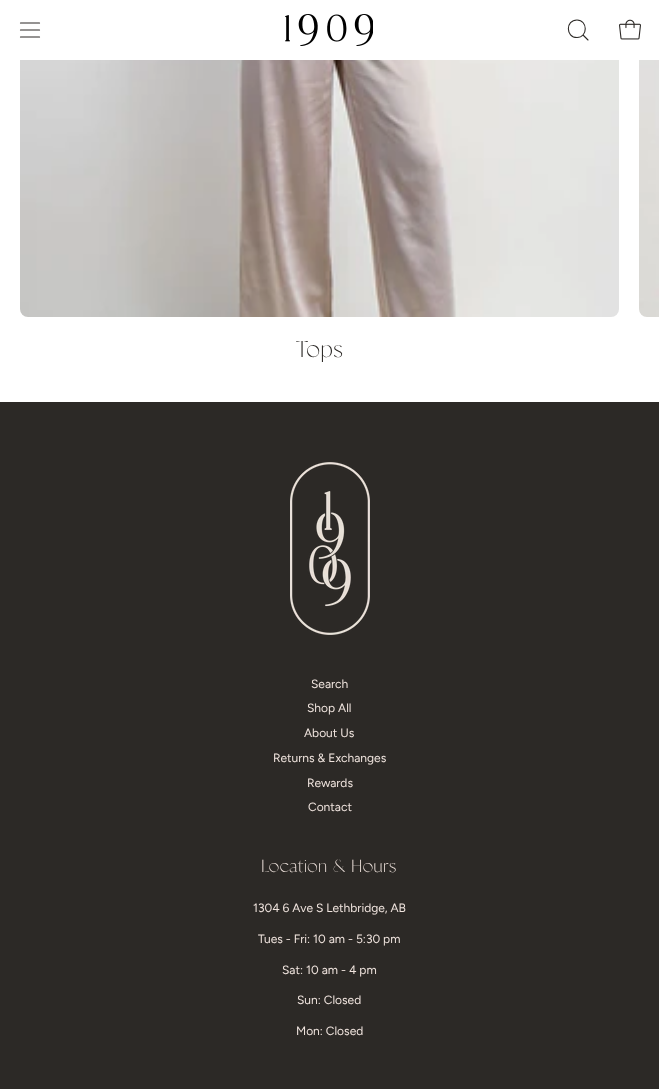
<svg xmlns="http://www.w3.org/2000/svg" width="659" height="1089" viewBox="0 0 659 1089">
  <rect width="100%" height="100%" fill="rgb(255,255,255)"/>
  <path d="M20.5 30H39.5M20.5 23H39.5M20.5 37H39.5" fill="none" stroke="rgb(44,41,38)" stroke-width="1.2" stroke-linecap="round" stroke-linejoin="round"/>
  <image x="285" y="14" width="88" height="32" href="pic1.png"/>
  <path d="M577 37.5C588 37.5 588 20 577 20C565.5 20 565.5 37.5 577 37.5ZM583 35L588 40" fill="none" stroke="rgb(44,41,38)" stroke-width="1.1" stroke-linecap="round" stroke-linejoin="round"/>
  <image x="619" y="19" width="22" height="21" href="pic2.png"/>
  <image x="639" y="60" width="20" height="257" href="pic3.png"/>
  <image x="20" y="60" width="599" height="257" href="pic4.png"/>
  <text x="296" y="357" font-family="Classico" font-size="23" fill="rgb(44,41,38)">Tops</text>
  <rect x="0" y="402" width="659" height="687" fill="rgb(44,41,38)"/>
  <image x="290" y="462" width="80" height="173" href="pic5.png"/>
  <g font-family="Figtree" font-size="12" fill="rgb(240,228,222)">
    <text x="311" y="688">Search</text>
    <text x="307" y="712">Shop All</text>
    <text x="304" y="737">About Us</text>
    <text x="273" y="762">Returns &amp; Exchanges</text>
    <text x="307" y="787">Rewards</text>
    <text x="308" y="811">Contact</text>
  </g>
  <text x="261" y="872" font-family="Classico" font-size="17.5" fill="rgb(240,228,222)">Location &amp; Hours</text>
  <g font-family="Figtree" font-size="12" fill="rgb(240,228,222)">
    <text x="253" y="912">1304 6 Ave S Lethbridge, AB</text>
    <text x="258" y="943">Tues - Fri: 10 am - 5:30 pm</text>
    <text x="282" y="974">Sat: 10 am - 4 pm</text>
    <text x="297" y="1004">Sun: Closed</text>
    <text x="296" y="1035">Mon: Closed</text>
  </g>
</svg>
